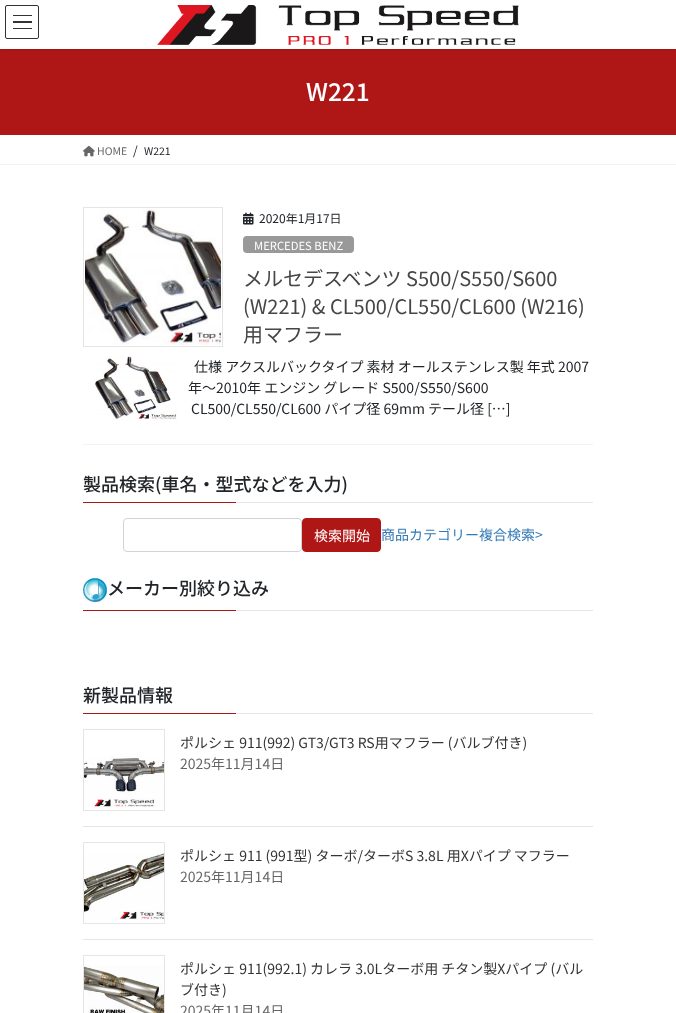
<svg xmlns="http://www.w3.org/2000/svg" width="676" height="1013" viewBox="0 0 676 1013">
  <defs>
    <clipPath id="clip1"><rect x="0" y="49" width="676" height="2"/></clipPath>
  </defs>
  <rect width="100%" height="100%" fill="rgb(255,255,255)"/>
  <rect x="0" y="49" width="676" height="86" fill="rgb(175,22,22)"/>
  <g clip-path="url(#clip1)">
    <rect x="0" y="1" width="676" height="49" fill="rgba(0,0,0,0.1)" filter="blur(1.5px)"/>
  </g>
  <image x="157" y="5" width="362" height="40" href="pic1.png"/>
  <rect x="13" y="15" width="19" height="1" fill="rgb(51,51,51)"/>
  <rect x="13" y="21" width="19" height="2" fill="rgb(51,51,51)"/>
  <rect x="13" y="28" width="19" height="1" fill="rgb(51,51,51)"/>
  <rect x="5.5" y="5.5" width="33" height="33" rx="1.5" fill="none" stroke="rgb(51,51,51)"/>
  <text x="306" y="101" font-family="Noto Sans JP" font-size="24.5" font-weight="500" fill="rgb(255,255,255)">W221</text>
  <rect x="0" y="164" width="676" height="1" fill="rgb(242,242,242)"/>
  <image x="83" y="145" width="12" height="12" href="pic2.png"/>
  <text x="97" y="155" font-family="Noto Sans JP" font-size="10.5" fill="rgb(102,102,102)">HOME</text>
  <text x="133" y="155" font-family="Noto Sans JP" font-size="12" fill="rgb(33,37,41)">/</text>
  <text x="144" y="155" font-family="Noto Sans JP" font-size="10.5" fill="rgb(33,37,41)">W221</text>
  <rect x="83" y="444" width="510" height="1" fill="rgb(242,242,242)"/>
  <rect x="83.5" y="207.5" width="139" height="139" fill="none" stroke="rgb(229,229,229)"/>
  <image x="85" y="209" width="136" height="136" href="pic3.png"/>
  <image x="243" y="212" width="11" height="13" href="pic4.png"/>
  <text x="259" y="223" font-family="Noto Sans JP" font-size="12" fill="rgb(33,37,41)">2020年1月17日</text>
  <rect x="243" y="236" width="111" height="17" rx="4" fill="rgb(153,153,153)"/>
  <text x="254" y="250" font-family="Noto Sans JP" font-size="11.25" fill="rgb(255,255,255)">MERCEDES BENZ</text>
  <g font-family="Noto Sans JP" font-size="20" fill="rgb(70,70,70)">
    <text>
      <tspan x="243" y="286">メルセデスベンツ S500/S550/S600</tspan>
      <tspan x="243" y="314">(W221) &amp; CL500/CL550/CL600 (W216)</tspan>
      <tspan x="243" y="342">用マフラー</tspan>
    </text>
  </g>
  <image x="93" y="356" width="84" height="64" href="pic5.png"/>
  <g font-family="Noto Sans JP" font-size="14" fill="rgb(33,37,41)">
    <text x="194" y="372">仕様 アクスルバックタイプ 素材 オールステンレス製 年式 2007</text>
    <text x="188" y="393">年～2010年 エンジン グレード S500/S550/S600</text>
    <text x="191" y="414">CL500/CL550/CL600 パイプ径 69mm テール径 […]</text>
  </g>
  <rect x="236" y="502" width="357" height="1" fill="rgb(230,230,230)"/>
  <text x="83" y="491" font-family="Noto Sans JP" font-size="18" font-weight="500" fill="rgb(33,37,41)">製品検索(車名・型式などを入力)</text>
  <rect x="83" y="502" width="153" height="1" fill="rgb(175,22,22)"/>
  <rect x="123.5" y="518.5" width="178" height="33" rx="3.5" fill="none" stroke="rgb(206,212,218)"/>
  <rect x="302.5" y="518.5" width="78" height="33" rx="3.5" fill="rgb(175,22,22)" stroke="rgb(175,22,22)"/>
  <text x="314" y="541" font-family="Noto Sans JP" font-size="14" fill="rgb(255,255,255)">検索開始</text>
  <text x="381" y="540" font-family="Noto Sans JP" font-size="14" fill="rgb(51,122,183)">商品カテゴリー複合検索&gt;</text>
  <rect x="236" y="610" width="357" height="1" fill="rgb(230,230,230)"/>
  <image x="83" y="578" width="24" height="24" href="pic6.png"/>
  <text x="107" y="595" font-family="Noto Sans JP" font-size="18" font-weight="500" fill="rgb(33,37,41)">メーカー別絞り込み</text>
  <rect x="83" y="610" width="153" height="1" fill="rgb(175,22,22)"/>
  <rect x="236" y="713" width="357" height="1" fill="rgb(230,230,230)"/>
  <text x="83" y="702" font-family="Noto Sans JP" font-size="18" font-weight="500" fill="rgb(33,37,41)">新製品情報</text>
  <rect x="83" y="713" width="153" height="1" fill="rgb(175,22,22)"/>
  <rect x="83" y="826" width="510" height="1" fill="rgb(229,229,229)"/>
  <rect x="83.5" y="729.5" width="81" height="81" fill="none" stroke="rgb(229,229,229)"/>
  <image x="84" y="756" width="80" height="51" href="pic7.png"/>
  <text x="180" y="748" font-family="Noto Sans JP" font-size="14" fill="rgb(51,51,51)">ポルシェ 911(992) GT3/GT3 RS用マフラー (バルブ付き)</text>
  <text x="180" y="769" font-family="Noto Sans JP" font-size="14" fill="rgb(102,102,102)">2025年11月14日</text>
  <rect x="83" y="939" width="510" height="1" fill="rgb(229,229,229)"/>
  <rect x="83.5" y="842.5" width="81" height="81" fill="none" stroke="rgb(229,229,229)"/>
  <image x="84" y="853" width="80" height="67" href="pic8.png"/>
  <text x="180" y="861" font-family="Noto Sans JP" font-size="14" fill="rgb(51,51,51)">ポルシェ 911 (991型) ターボ/ターボS 3.8L 用Xパイプ マフラー</text>
  <text x="180" y="882" font-family="Noto Sans JP" font-size="14" fill="rgb(102,102,102)">2025年11月14日</text>
  <rect x="83.5" y="955.5" width="81" height="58" fill="none" stroke="rgb(229,229,229)"/>
  <image x="84" y="965" width="80" height="48" href="pic9.png"/>
  <g font-family="Noto Sans JP" font-size="14" fill="rgb(51,51,51)">
    <text>
      <tspan x="180" y="974">ポルシェ 911(992.1) カレラ 3.0Lターボ用 チタン製Xパイプ (バル</tspan>
      <tspan x="180" y="995">ブ付き)</tspan>
    </text>
  </g>
  <text x="180" y="1016" font-family="Noto Sans JP" font-size="14" fill="rgb(102,102,102)">2025年11月14日</text>
</svg>
